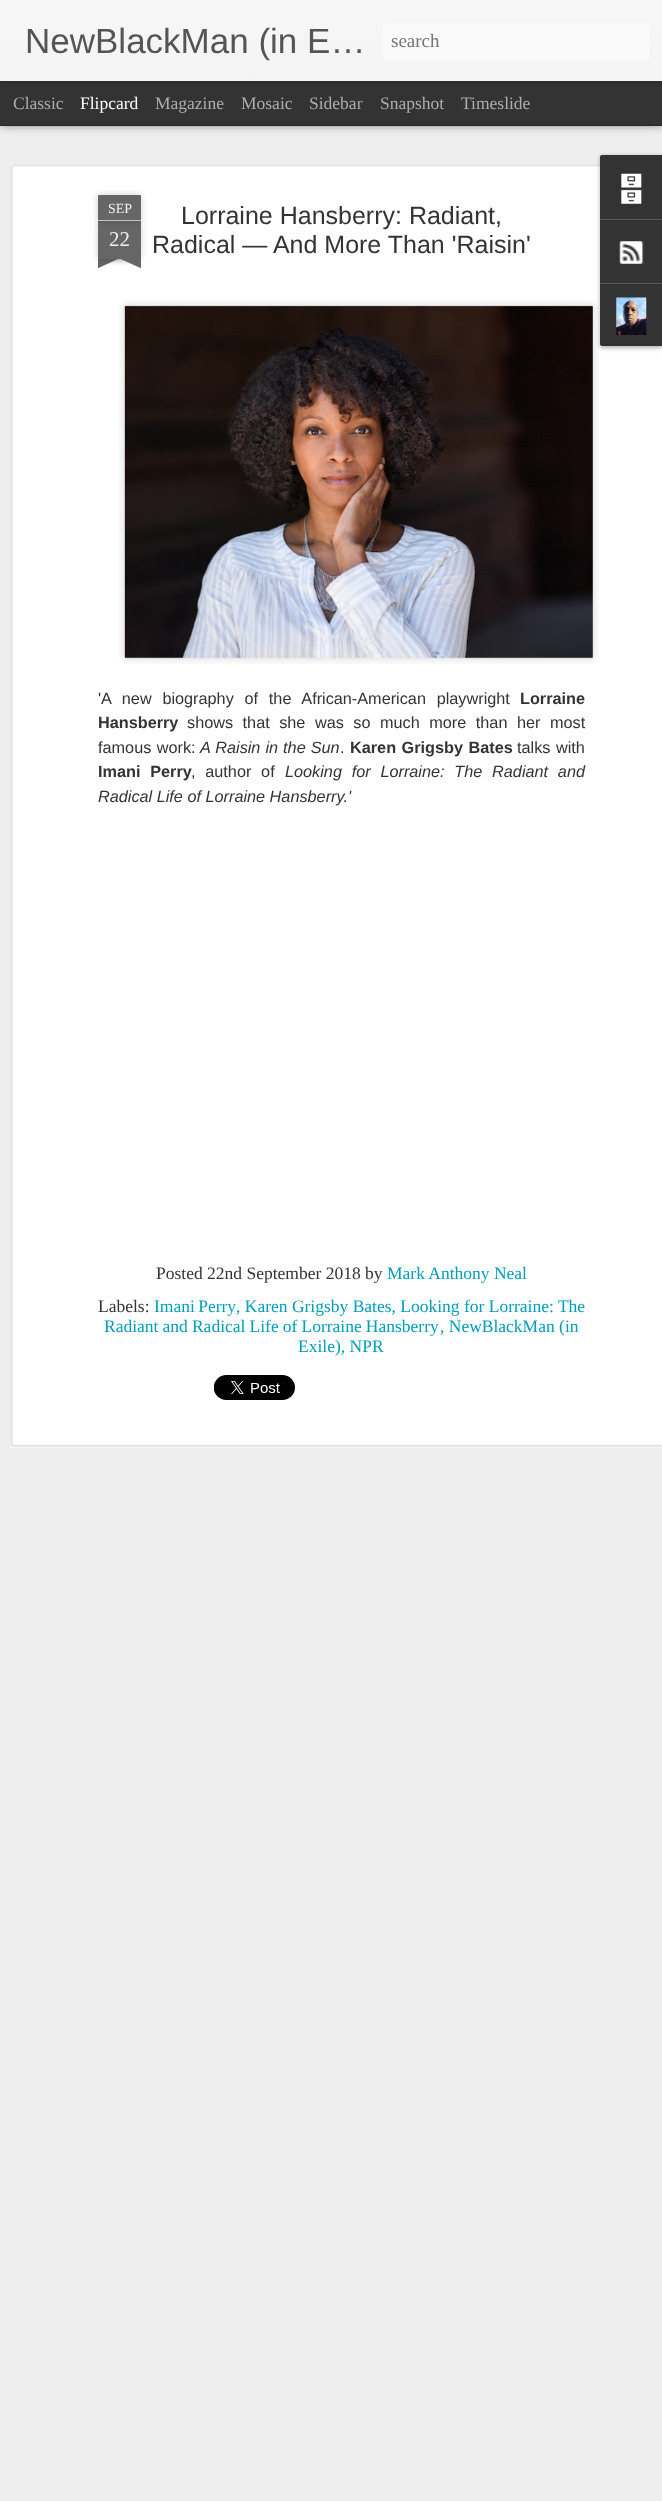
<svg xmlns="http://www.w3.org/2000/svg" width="662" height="2501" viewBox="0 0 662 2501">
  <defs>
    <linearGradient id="g1" gradientUnits="userSpaceOnUse" x1="0" y1="0" x2="0" y2="81"><stop offset="0" stop-color="rgb(247,247,247)"/><stop offset="1" stop-color="rgb(244,244,244)"/></linearGradient>
    <clipPath id="clip1"><rect x="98" y="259" width="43" height="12"/></clipPath>
    <clipPath id="clip2"><rect x="98" y="259" width="43" height="12"/></clipPath>
  </defs>
  <rect width="100%" height="100%" fill="rgb(51,51,51)"/>
  <rect x="0" y="126" width="662" height="2375" fill="rgb(238,238,238)"/>
  <rect x="0" y="81" width="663" height="44" fill="rgba(0,0,0,0.5)" filter="blur(5px)"/>
  <rect x="0" y="81" width="662" height="44" fill="rgb(51,51,51)"/>
  <rect x="0" y="0" width="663" height="81" fill="rgba(0,0,0,0.3)" filter="blur(3px)"/>
  <rect x="0" y="0" width="662" height="81" fill="url(#g1)"/>
  <text x="25" y="53" font-family="Liberation Sans" font-size="35" fill="rgb(85,85,85)">NewBlackMan (in E…</text>
  <rect x="383" y="23" width="267" height="37" rx="4" fill="rgb(250,250,250)"/>
  <text x="391" y="47" font-family="Liberation Serif" font-size="19" fill="rgb(117,117,117)">search</text>
  <text x="13" y="109" font-family="Liberation Serif" font-size="17.5" fill="rgb(173,173,173)">Classic</text>
  <text x="80" y="109" font-family="Liberation Serif" font-size="17.5" fill="rgb(255,255,255)">Flipcard</text>
  <g font-family="Liberation Serif" font-size="17.5" fill="rgb(173,173,173)">
    <text x="155" y="109">Magazine</text>
    <text x="241" y="109">Mosaic</text>
    <text x="309" y="109">Sidebar</text>
    <text x="380" y="109">Snapshot</text>
    <text x="461" y="109">Timeslide</text>
  </g>
  <rect x="10" y="164" width="652" height="1284" fill="rgb(255,255,255)"/>
  <image x="10" y="164" width="652" height="1284" href="pic1.png"/>
  <rect x="98" y="221" width="43" height="38" fill="rgba(0,0,0,0.2)" filter="blur(3px)"/>
  <rect x="98" y="221" width="43" height="38" fill="rgb(102,102,102)"/>
  <rect x="98" y="195" width="43" height="26" rx="1" fill="rgba(0,0,0,0.2)" filter="blur(3px)"/>
  <path d="M99 195H140C140.5 195 141 195.5 141 196V221H98V196C98 195.5 98.5 195 99 195Z" fill="rgb(102,102,102)"/>
  <rect x="98" y="220" width="43" height="1" fill="rgb(194,194,194)"/>
  <text x="108" y="213" font-family="Liberation Serif" font-size="14" fill="rgb(238,238,238)">SEP</text>
  <text x="109" y="246" font-family="Liberation Serif" font-size="21" fill="rgb(238,238,238)">22</text>
  <g clip-path="url(#clip1)">
    <rect x="86" y="246" width="63" height="13" fill="rgba(0,0,0,0.2)" filter="blur(3px)"/>
  </g>
  <g clip-path="url(#clip2)">
    <path d="M87 260L143 234L148 245L92 271Z" fill="rgb(102,102,102)"/>
  </g>
  <g clip-path="url(#clip1)">
    <rect x="90" y="246" width="63" height="13" fill="rgba(0,0,0,0.2)" filter="blur(3px)"/>
  </g>
  <g clip-path="url(#clip2)">
    <path d="M96 234L152 260L147 271L90 245Z" fill="rgb(102,102,102)"/>
  </g>
  <g font-family="Liberation Sans" font-size="25" fill="rgb(51,51,51)">
    <text x="181" y="224">Lorraine Hansberry: Radiant,</text>
    <text x="152" y="253">Radical — And More Than 'Raisin'</text>
  </g>
  <image x="119" y="300" width="480" height="364" href="pic2.png"/>
  <image x="124" y="305" width="469" height="353" href="pic3.png"/>
  <text x="98" y="704" word-spacing="6.25" font-family="Liberation Sans" font-size="16.25" fill="rgb(51,51,51)">'A new biography of the African-American playwright</text>
  <g font-family="Liberation Sans" font-size="16.25" font-weight="bold" fill="rgb(51,51,51)">
    <text x="520" y="704">Lorraine</text>
    <text x="98" y="728">Hansberry</text>
  </g>
  <g font-family="Liberation Sans" font-size="16.25" fill="rgb(51,51,51)">
    <text x="187" y="728" word-spacing="5">shows that she was so much more than her most</text>
    <text x="98" y="753" word-spacing="1">famous work:</text>
  </g>
  <text x="200" y="753" word-spacing="0.5" font-family="Liberation Sans" font-size="16.25" font-style="italic" fill="rgb(51,51,51)">A Raisin in the Sun</text>
  <text x="340" y="753" font-family="Liberation Sans" font-size="16.25" fill="rgb(51,51,51)">.</text>
  <text x="350" y="753" word-spacing="1" font-family="Liberation Sans" font-size="16.25" font-weight="bold" fill="rgb(51,51,51)">Karen Grigsby Bates</text>
  <text x="517" y="753" word-spacing="1" font-family="Liberation Sans" font-size="16.25" fill="rgb(51,51,51)">talks with</text>
  <text x="98" y="777" word-spacing="5.25" font-family="Liberation Sans" font-size="16.25" font-weight="bold" fill="rgb(51,51,51)">Imani Perry</text>
  <text x="191" y="777" word-spacing="5.25" font-family="Liberation Sans" font-size="16.25" fill="rgb(51,51,51)">, author of</text>
  <g font-family="Liberation Sans" font-size="16.25" font-style="italic" fill="rgb(51,51,51)">
    <text x="285" y="777" word-spacing="5.25">Looking for Lorraine: The Radiant and</text>
    <text x="98" y="802">Radical Life of Lorraine Hansberry.'</text>
  </g>
  <text x="156" y="1279" font-family="Liberation Serif" font-size="17.5" fill="rgb(51,51,51)">Posted 22nd September 2018 by</text>
  <text x="387" y="1279" font-family="Liberation Serif" font-size="17.5" fill="rgb(0,158,184)">Mark Anthony Neal</text>
  <text x="98" y="1312" font-family="Liberation Serif" font-size="17.5" fill="rgb(51,51,51)">Labels:</text>
  <g font-family="Liberation Serif" font-size="17.5" fill="rgb(0,158,184)">
    <text x="154" y="1312" word-spacing="-1">Imani Perry</text>
    <text x="236" y="1312">, Karen Grigsby Bates, Looking for Lorraine: The</text>
    <text x="104" y="1332" word-spacing="-0.25">Radiant and Radical Life of Lorraine Hansberry</text>
    <text x="440" y="1332">, NewBlackMan (in</text>
    <text x="298" y="1352">Exile), NPR</text>
  </g>
  <image x="214" y="1375" width="81" height="25" href="pic4.png"/>
  <rect x="600" y="156" width="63" height="192" rx="2.5" fill="rgba(0,0,0,0.3)" filter="blur(2px)"/>
  <path d="M602.5 155H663V346H602.5C601 346 600 345 600 343.5V157.5C600 156 601 155 602.5 155Z" fill="rgb(51,51,51)"/>
  <path d="M602.5 155H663V219H600V157.5C600 156 601 155 602.5 155Z" fill="rgb(51,51,51)"/>
  <image x="621" y="173" width="21" height="31" href="pic5.png"/>
  <rect x="600" y="219" width="62" height="1" fill="rgb(88,88,88)"/>
  <image x="619" y="241" width="25" height="23" href="pic6.png"/>
  <path d="M600 283H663V346H602.5C601 346 600 345 600 343.5Z" fill="rgb(51,51,51)"/>
  <rect x="600" y="283" width="62" height="1" fill="rgb(88,88,88)"/>
  <image x="616" y="297" width="31" height="38" href="pic7.png"/>
</svg>
